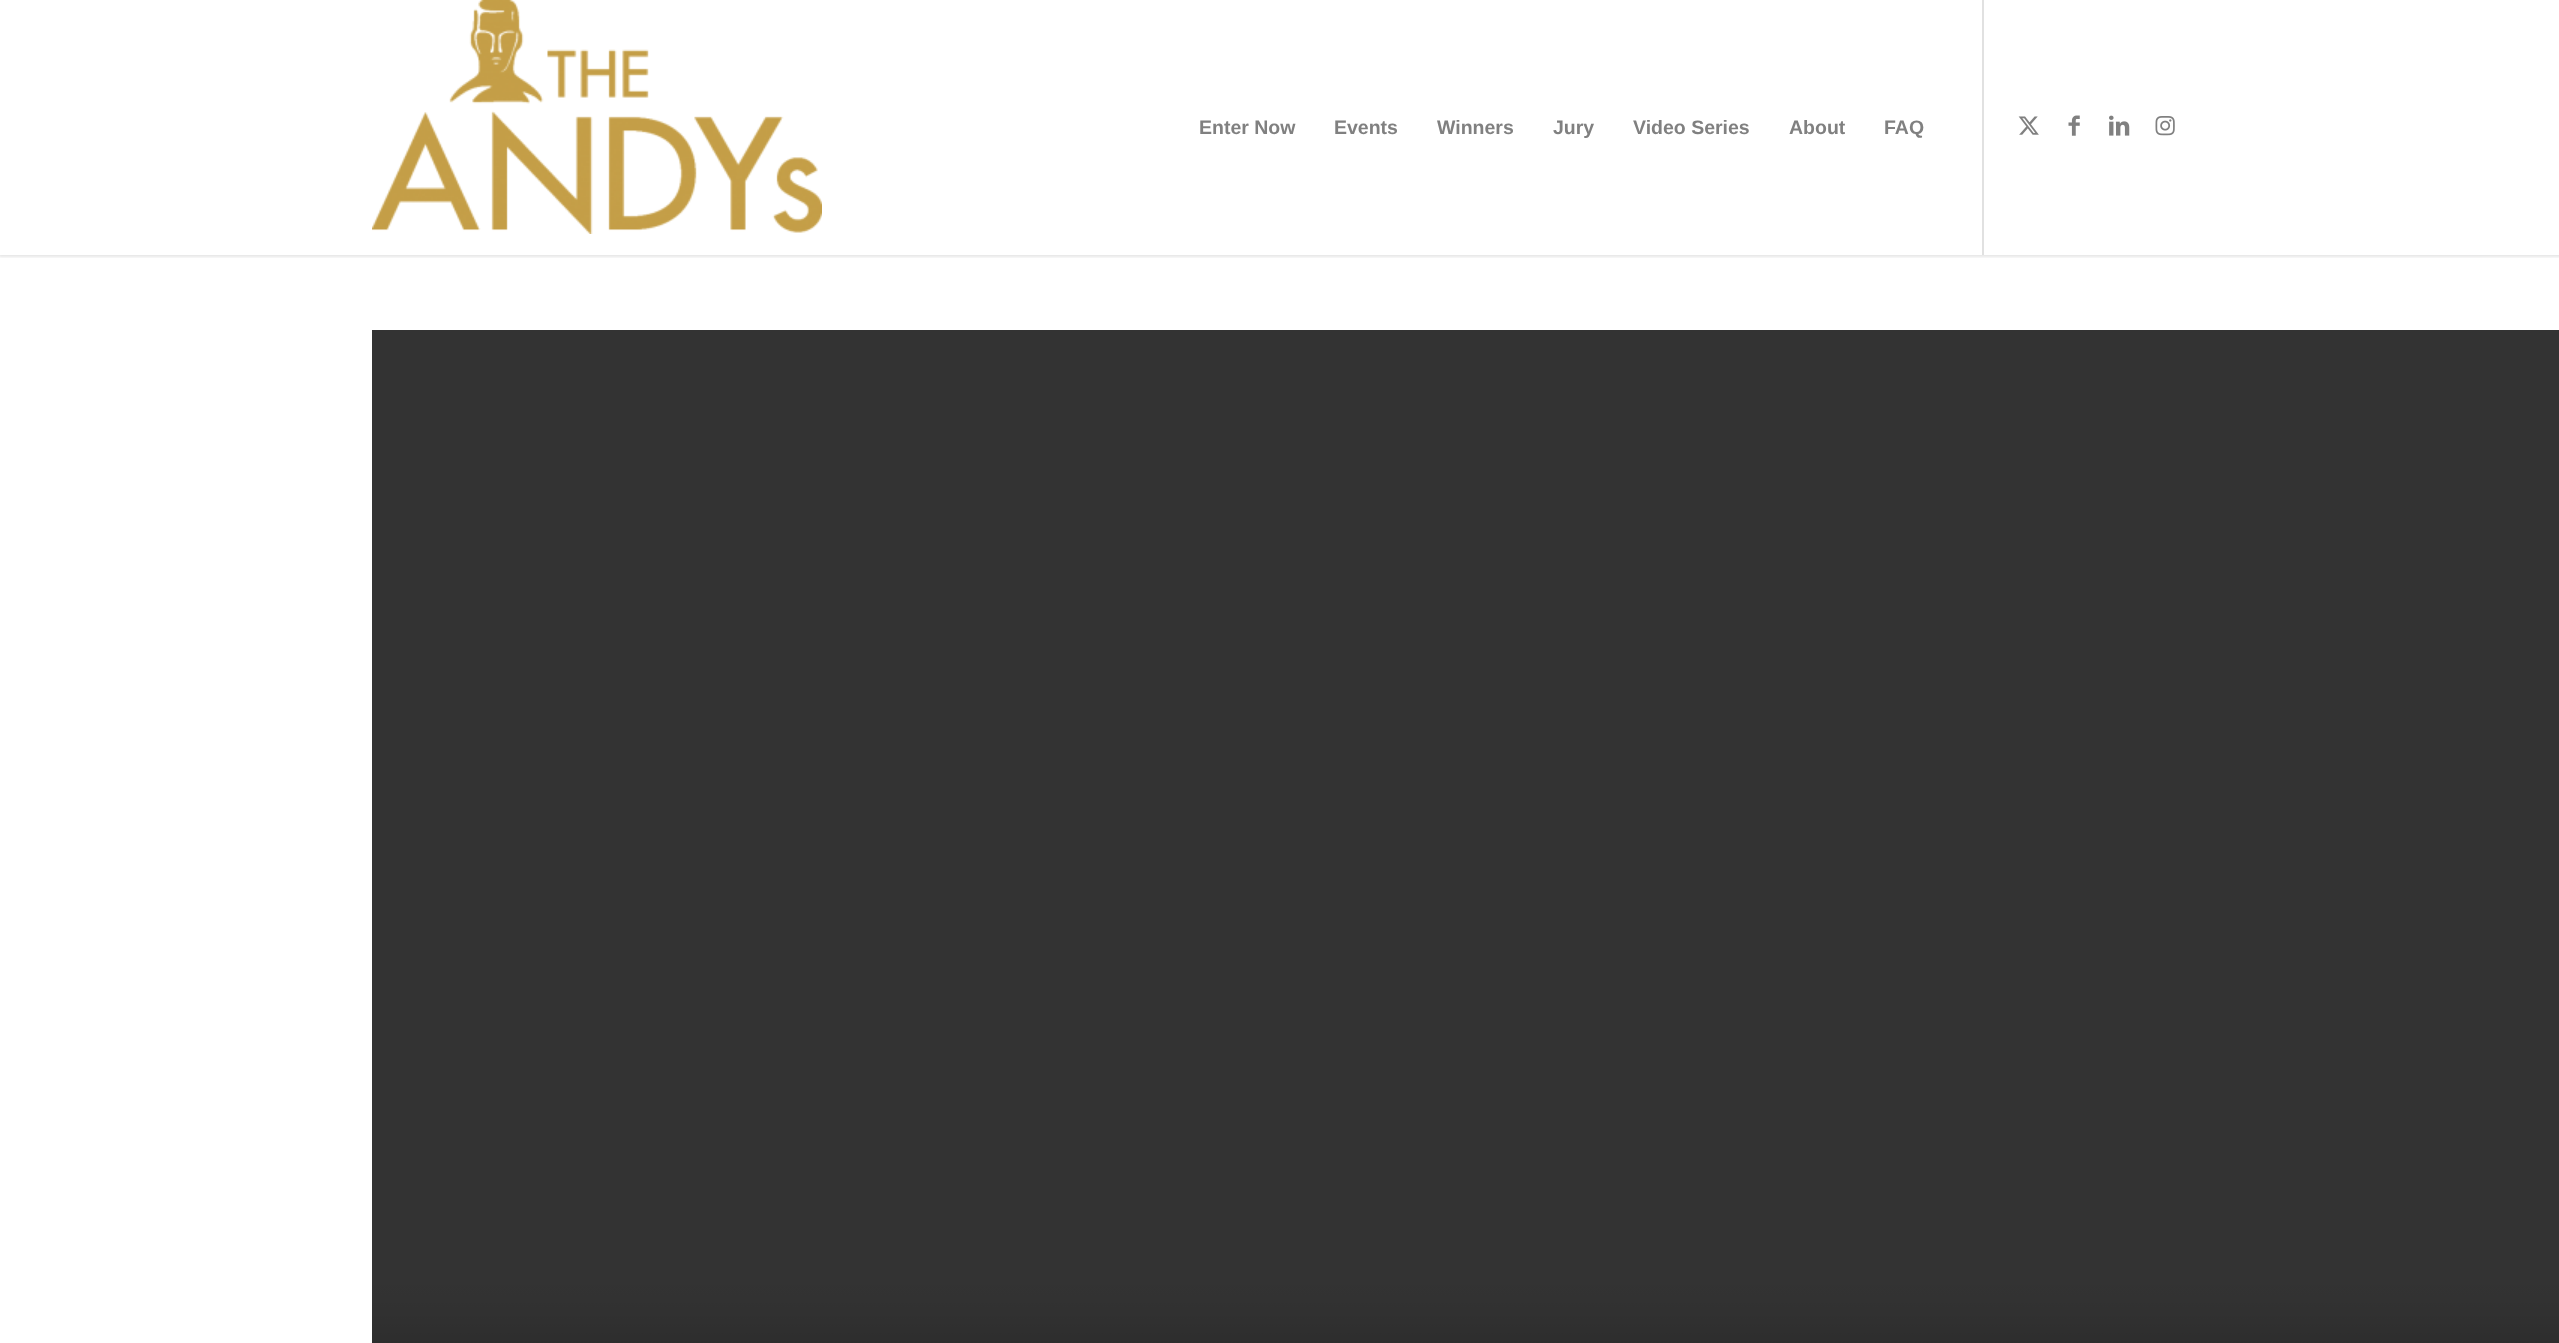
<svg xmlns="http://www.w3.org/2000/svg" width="2559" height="1343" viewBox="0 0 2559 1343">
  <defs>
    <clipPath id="clip1"><rect x="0" y="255" width="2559" height="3"/></clipPath>
  </defs>
  <rect width="100%" height="100%" fill="rgb(255,255,255)"/>
  <g clip-path="url(#clip1)">
    <rect x="-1" y="-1" width="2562" height="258" fill="rgba(0,0,0,0.1)" filter="blur(1.5px)"/>
  </g>
  <image x="372" y="0" width="450" height="234" href="pic1.png"/>
  <rect x="1982" y="0" width="2" height="255" fill="rgb(225,225,225)"/>
  <g font-family="Liberation Sans" font-size="19.5" font-weight="bold" fill="rgb(128,128,128)">
    <text x="1199" y="134">Enter Now</text>
    <text x="1334" y="134">Events</text>
    <text x="1437" y="134">Winners</text>
    <text x="1553" y="134">Jury</text>
    <text x="1633" y="134">Video Series</text>
    <text x="1789" y="134">About</text>
    <text x="1884" y="134">FAQ</text>
  </g>
  <image x="2018" y="116" width="21" height="19" href="pic2.png"/>
  <image x="2068" y="115" width="12" height="21" href="pic3.png"/>
  <image x="2109" y="115" width="21" height="21" href="pic4.png"/>
  <image x="2155" y="116" width="20" height="20" href="pic5.png"/>
  <image x="372" y="330" width="2187" height="1013" href="pic6.png"/>
</svg>
